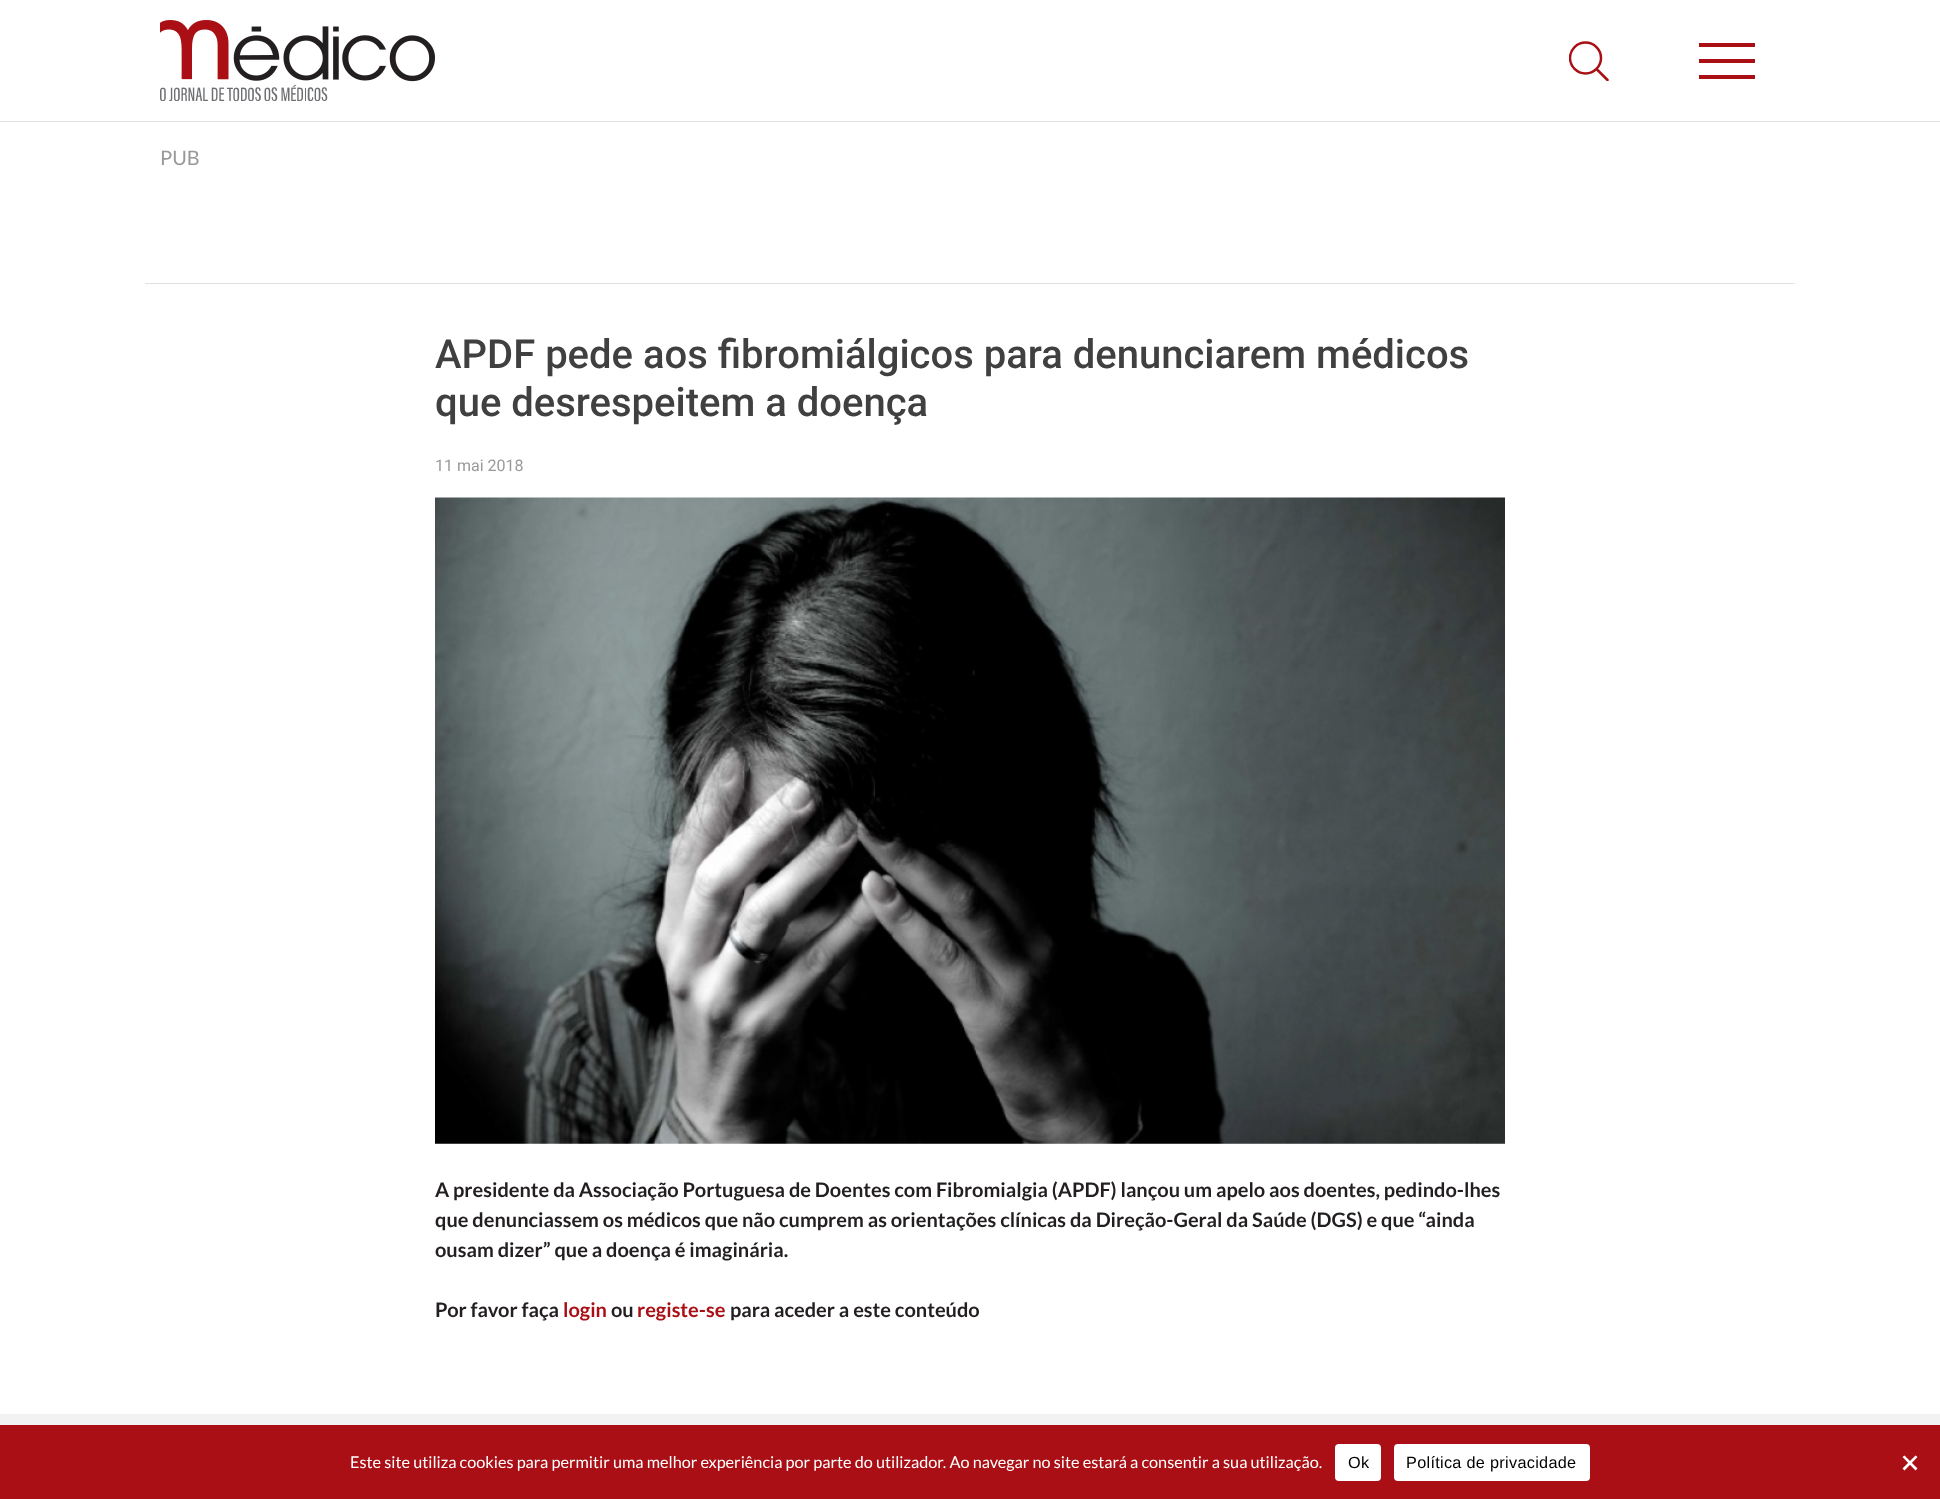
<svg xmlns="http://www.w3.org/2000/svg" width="1940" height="1499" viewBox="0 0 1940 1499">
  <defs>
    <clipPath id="clip1"><rect x="1569" y="41" width="40" height="40"/></clipPath>
  </defs>
  <rect width="100%" height="100%" fill="rgb(255,255,255)"/>
  <rect x="0" y="121" width="1940" height="1" fill="rgb(222,226,230)"/>
  <image x="160" y="20" width="275" height="81" href="pic1.png"/>
  <g clip-path="url(#clip1)">
    <path d="M1607.5 80L1596.5 69M1601 58C1601 66.5 1594 73.5 1585.5 73.5C1577 73.5 1570 66.5 1570 58C1570 49.5 1577 42.5 1585.5 42.5C1594 42.5 1601 49.5 1601 58Z" fill="none" stroke="rgb(169,15,20)" stroke-width="2.5" stroke-linecap="round" stroke-linejoin="round"/>
  </g>
  <rect x="1699" y="43" width="56" height="4" fill="rgb(169,15,20)"/>
  <rect x="1699" y="59" width="56" height="4" fill="rgb(169,15,20)"/>
  <rect x="1699" y="75" width="56" height="4" fill="rgb(169,15,20)"/>
  <rect x="145" y="283" width="1650" height="1" fill="rgb(222,226,230)"/>
  <text x="160" y="165" font-family="Lato" font-size="20" fill="rgb(153,153,153)">PUB</text>
  <g font-family="Roboto" font-size="40" font-weight="500" fill="rgb(64,64,64)">
    <text>
      <tspan x="435" y="368">APDF pede aos fibromiálgicos para denunciarem médicos</tspan>
      <tspan x="435" y="416">que desrespeitem a doença</tspan>
    </text>
  </g>
  <text x="435" y="471" font-family="Roboto" font-size="16" fill="rgb(153,153,153)">11 mai 2018</text>
  <image x="435" y="497" width="1070" height="647" href="pic2.png"/>
  <g font-family="Lato" font-size="20" font-weight="bold" fill="rgb(35,31,32)">
    <text>
      <tspan x="435" y="1197">A presidente da Associação Portuguesa de Doentes com Fibromialgia (APDF) lançou um apelo aos doentes, pedindo-lhes</tspan>
      <tspan x="435" y="1227">que denunciassem os médicos que não cumprem as orientações clínicas da Direção-Geral da Saúde (DGS) e que “ainda</tspan>
      <tspan x="435" y="1257">ousam dizer” que a doença é imaginária.</tspan>
    </text>
    <text x="435" y="1317">Por favor faça</text>
  </g>
  <text x="563" y="1317" font-family="Lato" font-size="20" font-weight="bold" fill="rgb(169,15,20)">login</text>
  <text x="611" y="1317" font-family="Lato" font-size="20" font-weight="bold" fill="rgb(35,31,32)">ou</text>
  <text x="637" y="1317" font-family="Lato" font-size="20" font-weight="bold" fill="rgb(169,15,20)">registe-se</text>
  <text x="730" y="1317" font-family="Lato" font-size="20" font-weight="bold" fill="rgb(35,31,32)">para aceder a este conteúdo</text>
  <rect x="0" y="1414" width="1940" height="11" fill="rgb(242,242,242)"/>
  <rect x="0" y="1425" width="1940" height="74" fill="rgb(169,15,20)"/>
  <text x="350" y="1468" font-family="Lato" font-size="16.25" fill="rgb(255,255,255)">Este site utiliza cookies para permitir uma melhor experiência por parte do utilizador. Ao navegar no site estará a consentir a sua utilização.</text>
  <rect x="1335" y="1444" width="46" height="37" rx="4" fill="rgb(255,255,255)"/>
  <text x="1348" y="1468" font-family="Liberation Sans" font-size="16.25" letter-spacing="0.3" fill="rgb(0,0,0)">Ok</text>
  <rect x="1394" y="1444" width="196" height="37" rx="4" fill="rgb(255,255,255)"/>
  <text x="1406" y="1468" font-family="Liberation Sans" font-size="16.25" letter-spacing="0.3" fill="rgb(0,0,0)">Política de privacidade</text>
  <path d="M1915.5 1455.5L1917.5 1457L1904.5 1470.5L1902.5 1468.5Z" fill="rgb(255,255,255)"/>
  <path d="M1902.5 1457L1904.5 1455.5L1917.5 1468.5L1915.5 1470.5Z" fill="rgb(255,255,255)"/>
</svg>
